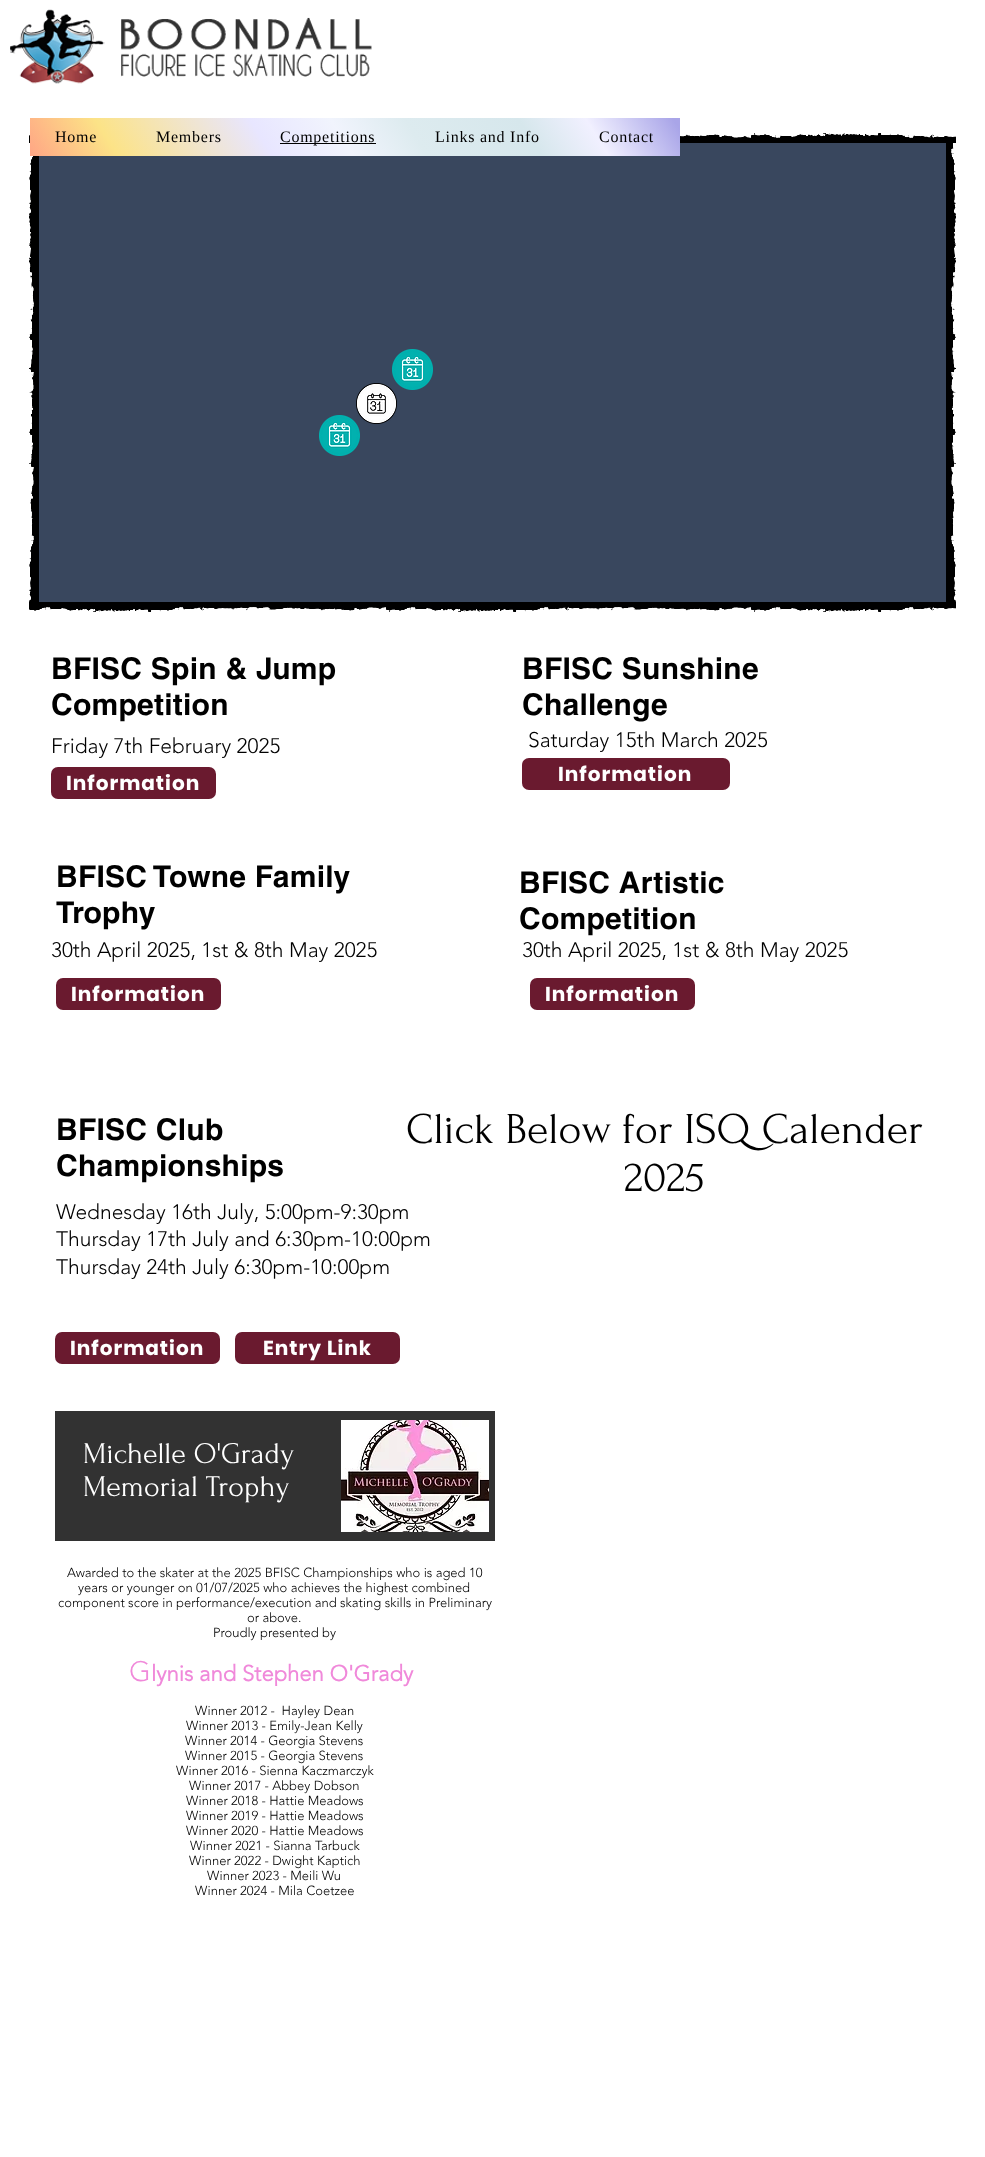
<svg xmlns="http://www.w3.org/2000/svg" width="985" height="2157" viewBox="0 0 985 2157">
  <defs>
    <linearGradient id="g1" gradientUnits="userSpaceOnUse" x1="113" y1="288" x2="597" y2="-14"><stop offset="0" stop-color="rgb(255,166,133)"/><stop offset="0.13" stop-color="rgb(252,227,135)"/><stop offset="0.36" stop-color="rgb(232,230,255)"/><stop offset="0.48" stop-color="rgb(241,244,253)"/><stop offset="0.59" stop-color="rgb(221,235,239)"/><stop offset="0.76" stop-color="rgb(214,231,236)"/><stop offset="0.86" stop-color="rgb(241,240,255)"/><stop offset="0.99" stop-color="rgb(169,165,232)"/></linearGradient>
  </defs>
  <rect width="100%" height="100%" fill="rgb(255,255,255)"/>
  <image x="10" y="9" width="362" height="75" href="pic1.png"/>
  <rect x="39" y="143" width="907" height="459" fill="rgb(57,71,94)"/>
  <image x="29" y="133" width="927" height="10" href="pic2.png"/>
  <rect x="30" y="118" width="650" height="38" fill="url(#g1)"/>
  <g font-family="Liberation Serif" font-size="16" letter-spacing="0.75" fill="rgb(0,0,0)">
    <text x="55" y="142">Home</text>
    <text x="156" y="142">Members</text>
  </g>
  <rect x="280" y="143" width="96" height="1" fill="rgb(0,0,0)"/>
  <g font-family="Liberation Serif" font-size="16" letter-spacing="0.75" fill="rgb(0,0,0)">
    <text x="280" y="142">Competitions</text>
    <text x="435" y="142">Links and Info</text>
    <text x="599" y="142">Contact</text>
  </g>
  <image x="29" y="602" width="927" height="10" href="pic3.png"/>
  <image x="29" y="156" width="10" height="446" href="pic4.png"/>
  <image x="946" y="143" width="10" height="459" href="pic5.png"/>
  <image x="392" y="349" width="41" height="41" href="pic6.png"/>
  <image x="356" y="383" width="41" height="41" href="pic7.png"/>
  <image x="319" y="415" width="41" height="41" href="pic8.png"/>
  <g font-family="helvetica" font-size="30" font-weight="bold" letter-spacing="0.25" fill="rgb(0,0,0)">
    <text>
      <tspan x="51" y="679">BFISC Spin &amp; Jump</tspan>
      <tspan x="51" y="715">Competition</tspan>
    </text>
    <text>
      <tspan x="522" y="679">BFISC Sunshine</tspan>
      <tspan x="522" y="715">Challenge</tspan>
    </text>
  </g>
  <g font-family="'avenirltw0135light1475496'" font-size="21" font-weight="300" fill="rgb(0,0,0)">
    <text x="51" y="753">Friday 7th February 2025</text>
    <text x="528" y="747">Saturday 15th March 2025</text>
  </g>
  <rect x="51" y="767" width="165" height="32" rx="7" fill="rgb(106,26,47)"/>
  <text x="66" y="790" font-family="Poppins" font-size="20" font-weight="bold" letter-spacing="1" fill="rgb(255,255,255)">Information</text>
  <rect x="522" y="758" width="208" height="32" rx="7" fill="rgb(106,26,47)"/>
  <text x="558" y="781" font-family="Poppins" font-size="20" font-weight="bold" letter-spacing="1" fill="rgb(255,255,255)">Information</text>
  <g font-family="helvetica" font-size="30" font-weight="bold" letter-spacing="0.25" fill="rgb(0,0,0)">
    <text>
      <tspan x="56" y="887">BFISC Towne Family</tspan>
      <tspan x="56" y="923">Trophy</tspan>
    </text>
    <text>
      <tspan x="519" y="893">BFISC Artistic</tspan>
      <tspan x="519" y="929">Competition</tspan>
    </text>
  </g>
  <g font-family="'avenirltw0135light1475496'" font-size="21" font-weight="300" fill="rgb(0,0,0)">
    <text x="51" y="957">30th April 2025, 1st &amp; 8th May 2025</text>
    <text x="522" y="957">30th April 2025, 1st &amp; 8th May 2025</text>
  </g>
  <rect x="56" y="978" width="165" height="32" rx="7" fill="rgb(106,26,47)"/>
  <text x="71" y="1001" font-family="Poppins" font-size="20" font-weight="bold" letter-spacing="1" fill="rgb(255,255,255)">Information</text>
  <rect x="530" y="978" width="165" height="32" rx="7" fill="rgb(106,26,47)"/>
  <text x="545" y="1001" font-family="Poppins" font-size="20" font-weight="bold" letter-spacing="1" fill="rgb(255,255,255)">Information</text>
  <g font-family="helvetica" font-size="30" font-weight="bold" letter-spacing="0.25" fill="rgb(0,0,0)">
    <text>
      <tspan x="56" y="1140">BFISC Club</tspan>
      <tspan x="56" y="1176">Championships</tspan>
    </text>
  </g>
  <g font-family="Forum" font-size="44" fill="rgb(0,0,0)">
    <text x="406" y="1143">Click Below for ISQ Calender</text>
    <text x="624" y="1191">2025</text>
  </g>
  <g font-family="'avenirltw0135light1475496'" font-size="21" font-weight="300" fill="rgb(0,0,0)">
    <text>
      <tspan x="56" y="1219">Wednesday 16th July, 5:00pm-9:30pm</tspan>
      <tspan x="56" y="1246">Thursday 17th July and 6:30pm-10:00pm</tspan>
      <tspan x="56" y="1274">Thursday 24th July 6:30pm-10:00pm</tspan>
    </text>
  </g>
  <rect x="55" y="1332" width="165" height="32" rx="7" fill="rgb(106,26,47)"/>
  <text x="70" y="1355" font-family="Poppins" font-size="20" font-weight="bold" letter-spacing="1" fill="rgb(255,255,255)">Information</text>
  <rect x="235" y="1332" width="165" height="32" rx="7" fill="rgb(106,26,47)"/>
  <text x="263" y="1355" font-family="Poppins" font-size="20" font-weight="bold" letter-spacing="1" fill="rgb(255,255,255)">Entry Link</text>
  <rect x="55" y="1411" width="440" height="130" fill="rgb(50,50,50)"/>
  <g font-family="Forum" font-size="30" fill="rgb(255,255,255)">
    <text>
      <tspan x="83" y="1463">Michelle O'Grady</tspan>
      <tspan x="83" y="1496">Memorial Trophy</tspan>
    </text>
  </g>
  <image x="341" y="1420" width="148" height="112" href="pic9.png"/>
  <g font-family="'avenirltw0135light1475496'" font-size="13" font-weight="300" fill="rgb(0,0,0)">
    <text x="67" y="1577">Awarded to the skater at the 2025 BFISC Championships who is aged 10</text>
    <text x="78" y="1592">years or younger on 01/07/2025 who achieves the highest combined</text>
    <text x="58" y="1607">component score in performance/execution and skating skills in Preliminary</text>
    <text x="247" y="1622">or above.</text>
    <text x="213" y="1637">Proudly presented by</text>
  </g>
  <text x="129" y="1681" font-family="'avenirltw0135light1475496'" font-size="28" font-weight="300" fill="rgb(240,137,218)">G</text>
  <text x="151" y="1681" font-family="'avenirltw0135light1475496'" font-size="22" font-weight="bold" fill="rgb(240,137,218)">lynis and Stephen O'Grady</text>
  <g font-family="'avenirltw0135light1475496'" font-size="13" font-weight="300" fill="rgb(0,0,0)">
    <text x="195" y="1715" xml:space="preserve">Winner 2012 -  Hayley Dean</text>
    <text x="186" y="1730">Winner 2013 - Emily-Jean Kelly</text>
    <text>
      <tspan x="185" y="1745">Winner 2014 - Georgia Stevens</tspan>
      <tspan x="185" y="1760">Winner 2015 - Georgia Stevens</tspan>
    </text>
    <text x="176" y="1775">Winner 2016 - Sienna Kaczmarczyk</text>
    <text x="189" y="1790">Winner 2017 - Abbey Dobson</text>
    <text>
      <tspan x="186" y="1805">Winner 2018 - Hattie Meadows</tspan>
      <tspan x="186" y="1820">Winner 2019 - Hattie Meadows</tspan>
      <tspan x="186" y="1835">Winner 2020 - Hattie Meadows</tspan>
    </text>
    <text x="190" y="1850">Winner 2021 - Sianna Tarbuck</text>
    <text x="189" y="1865">Winner 2022 - Dwight Kaptich</text>
    <text x="207" y="1880">Winner 2023 - Meili Wu</text>
    <text x="195" y="1895">Winner 2024 - Mila Coetzee</text>
  </g>
</svg>
